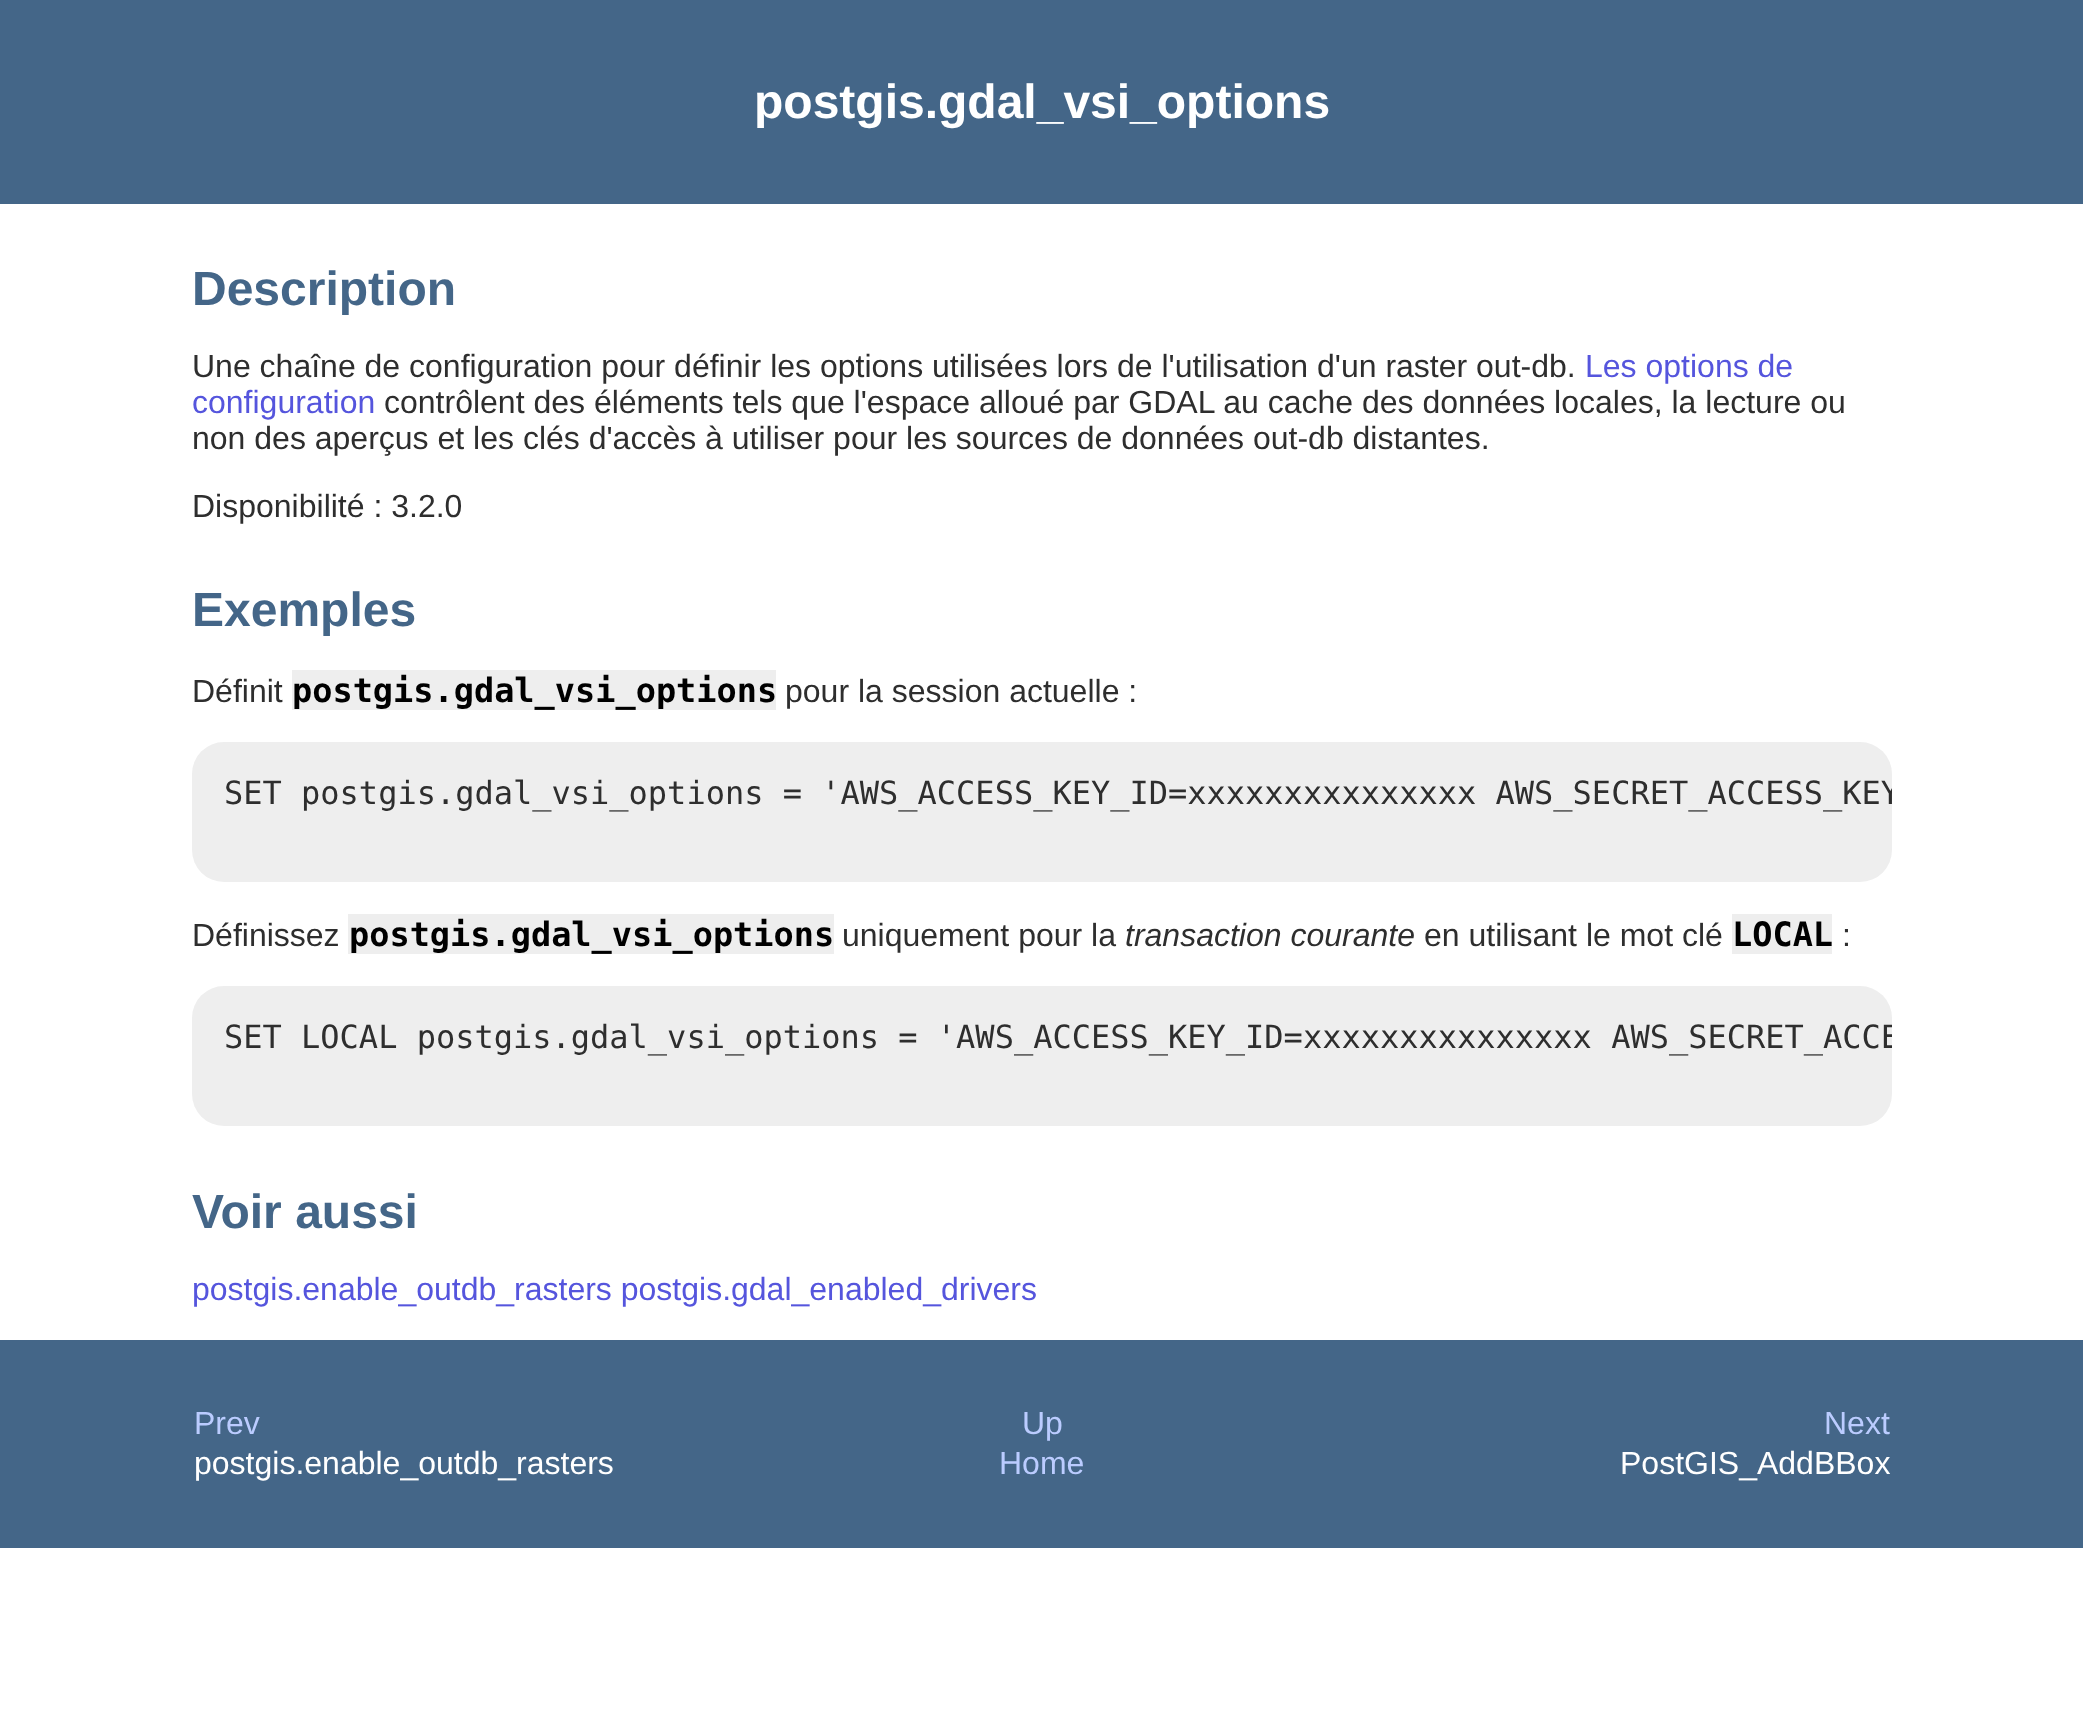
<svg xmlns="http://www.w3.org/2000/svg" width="2083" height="1735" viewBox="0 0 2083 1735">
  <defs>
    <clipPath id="clip1"><rect x="192" y="742" width="1700" height="140" rx="32"/></clipPath>
    <clipPath id="clip2"><rect x="192" y="986" width="1700" height="140" rx="32"/></clipPath>
  </defs>
  <rect width="100%" height="100%" fill="rgb(255,255,255)"/>
  <rect x="0" y="0" width="2083" height="204" fill="rgb(68,102,136)"/>
  <text x="754" y="118" font-family="Liberation Sans" font-size="48" font-weight="bold" fill="rgb(255,255,255)">postgis.gdal_vsi_options</text>
  <text x="192" y="305" font-family="Liberation Sans" font-size="48" font-weight="bold" fill="rgb(68,102,136)">Description</text>
  <text x="192" y="377" font-family="Liberation Sans" font-size="32" fill="rgb(46,46,46)">Une chaîne de configuration pour définir les options utilisées lors de l'utilisation d'un raster out-db.</text>
  <g font-family="Liberation Sans" font-size="32" fill="rgb(85,85,221)">
    <text x="1585" y="377">Les options de</text>
    <text x="192" y="413">configuration</text>
  </g>
  <g font-family="Liberation Sans" font-size="32" fill="rgb(46,46,46)">
    <text x="384" y="413">contrôlent des éléments tels que l'espace alloué par GDAL au cache des données locales, la lecture ou</text>
    <text x="192" y="449">non des aperçus et les clés d'accès à utiliser pour les sources de données out-db distantes.</text>
    <text x="192" y="517">Disponibilité : 3.2.0</text>
  </g>
  <text x="192" y="626" font-family="Liberation Sans" font-size="48" font-weight="bold" fill="rgb(68,102,136)">Exemples</text>
  <text x="192" y="702" font-family="Liberation Sans" font-size="32" fill="rgb(46,46,46)">Définit</text>
  <rect x="292" y="670" width="484" height="40" fill="rgb(238,238,238)"/>
  <text x="292" y="702" font-family="DejaVu Sans Mono" font-size="33.6" font-weight="bold" fill="rgb(0,0,0)">postgis.gdal_vsi_options</text>
  <text x="785" y="702" font-family="Liberation Sans" font-size="32" fill="rgb(46,46,46)">pour la session actuelle :</text>
  <rect x="192" y="742" width="1700" height="140" rx="32" fill="rgb(238,238,238)"/>
  <g clip-path="url(#clip1)">
    <text x="224" y="804" font-family="DejaVu Sans Mono" font-size="32" fill="rgb(46,46,46)">SET postgis.gdal_vsi_options = 'AWS_ACCESS_KEY_ID=xxxxxxxxxxxxxxx AWS_SECRET_ACCESS_KEY</text>
  </g>
  <text x="192" y="946" font-family="Liberation Sans" font-size="32" fill="rgb(46,46,46)">Définissez</text>
  <rect x="348" y="914" width="486" height="40" fill="rgb(238,238,238)"/>
  <text x="349" y="946" font-family="DejaVu Sans Mono" font-size="33.6" font-weight="bold" fill="rgb(0,0,0)">postgis.gdal_vsi_options</text>
  <text x="842" y="946" font-family="Liberation Sans" font-size="32" fill="rgb(46,46,46)">uniquement pour la</text>
  <text x="1125" y="946" font-family="Liberation Sans" font-size="32" font-style="italic" fill="rgb(46,46,46)">transaction courante</text>
  <text x="1424" y="946" font-family="Liberation Sans" font-size="32" fill="rgb(46,46,46)">en utilisant le mot clé</text>
  <rect x="1732" y="914" width="100" height="40" fill="rgb(238,238,238)"/>
  <text x="1732" y="946" font-family="DejaVu Sans Mono" font-size="33.6" font-weight="bold" fill="rgb(0,0,0)">LOCAL</text>
  <text x="1842" y="946" font-family="Liberation Sans" font-size="32" fill="rgb(46,46,46)">:</text>
  <rect x="192" y="986" width="1700" height="140" rx="32" fill="rgb(238,238,238)"/>
  <g clip-path="url(#clip2)">
    <text x="224" y="1048" font-family="DejaVu Sans Mono" font-size="32" fill="rgb(46,46,46)">SET LOCAL postgis.gdal_vsi_options = 'AWS_ACCESS_KEY_ID=xxxxxxxxxxxxxxx AWS_SECRET_ACCE</text>
  </g>
  <text x="192" y="1228" font-family="Liberation Sans" font-size="48" font-weight="bold" fill="rgb(68,102,136)">Voir aussi</text>
  <text x="192" y="1300" font-family="Liberation Sans" font-size="32" fill="rgb(85,85,221)">postgis.enable_outdb_rasters postgis.gdal_enabled_drivers</text>
  <rect x="0" y="1340" width="2083" height="208" fill="rgb(68,102,136)"/>
  <g font-family="Liberation Sans" font-size="32" fill="rgb(187,204,255)">
    <text x="194" y="1434">Prev</text>
    <text x="1022" y="1434">Up</text>
    <text x="1824" y="1434">Next</text>
  </g>
  <text x="194" y="1474" font-family="Liberation Sans" font-size="32" fill="rgb(255,255,255)">postgis.enable_outdb_rasters</text>
  <text x="999" y="1474" font-family="Liberation Sans" font-size="32" fill="rgb(187,204,255)">Home</text>
  <text x="1620" y="1474" font-family="Liberation Sans" font-size="32" fill="rgb(255,255,255)">PostGIS_AddBBox</text>
</svg>
